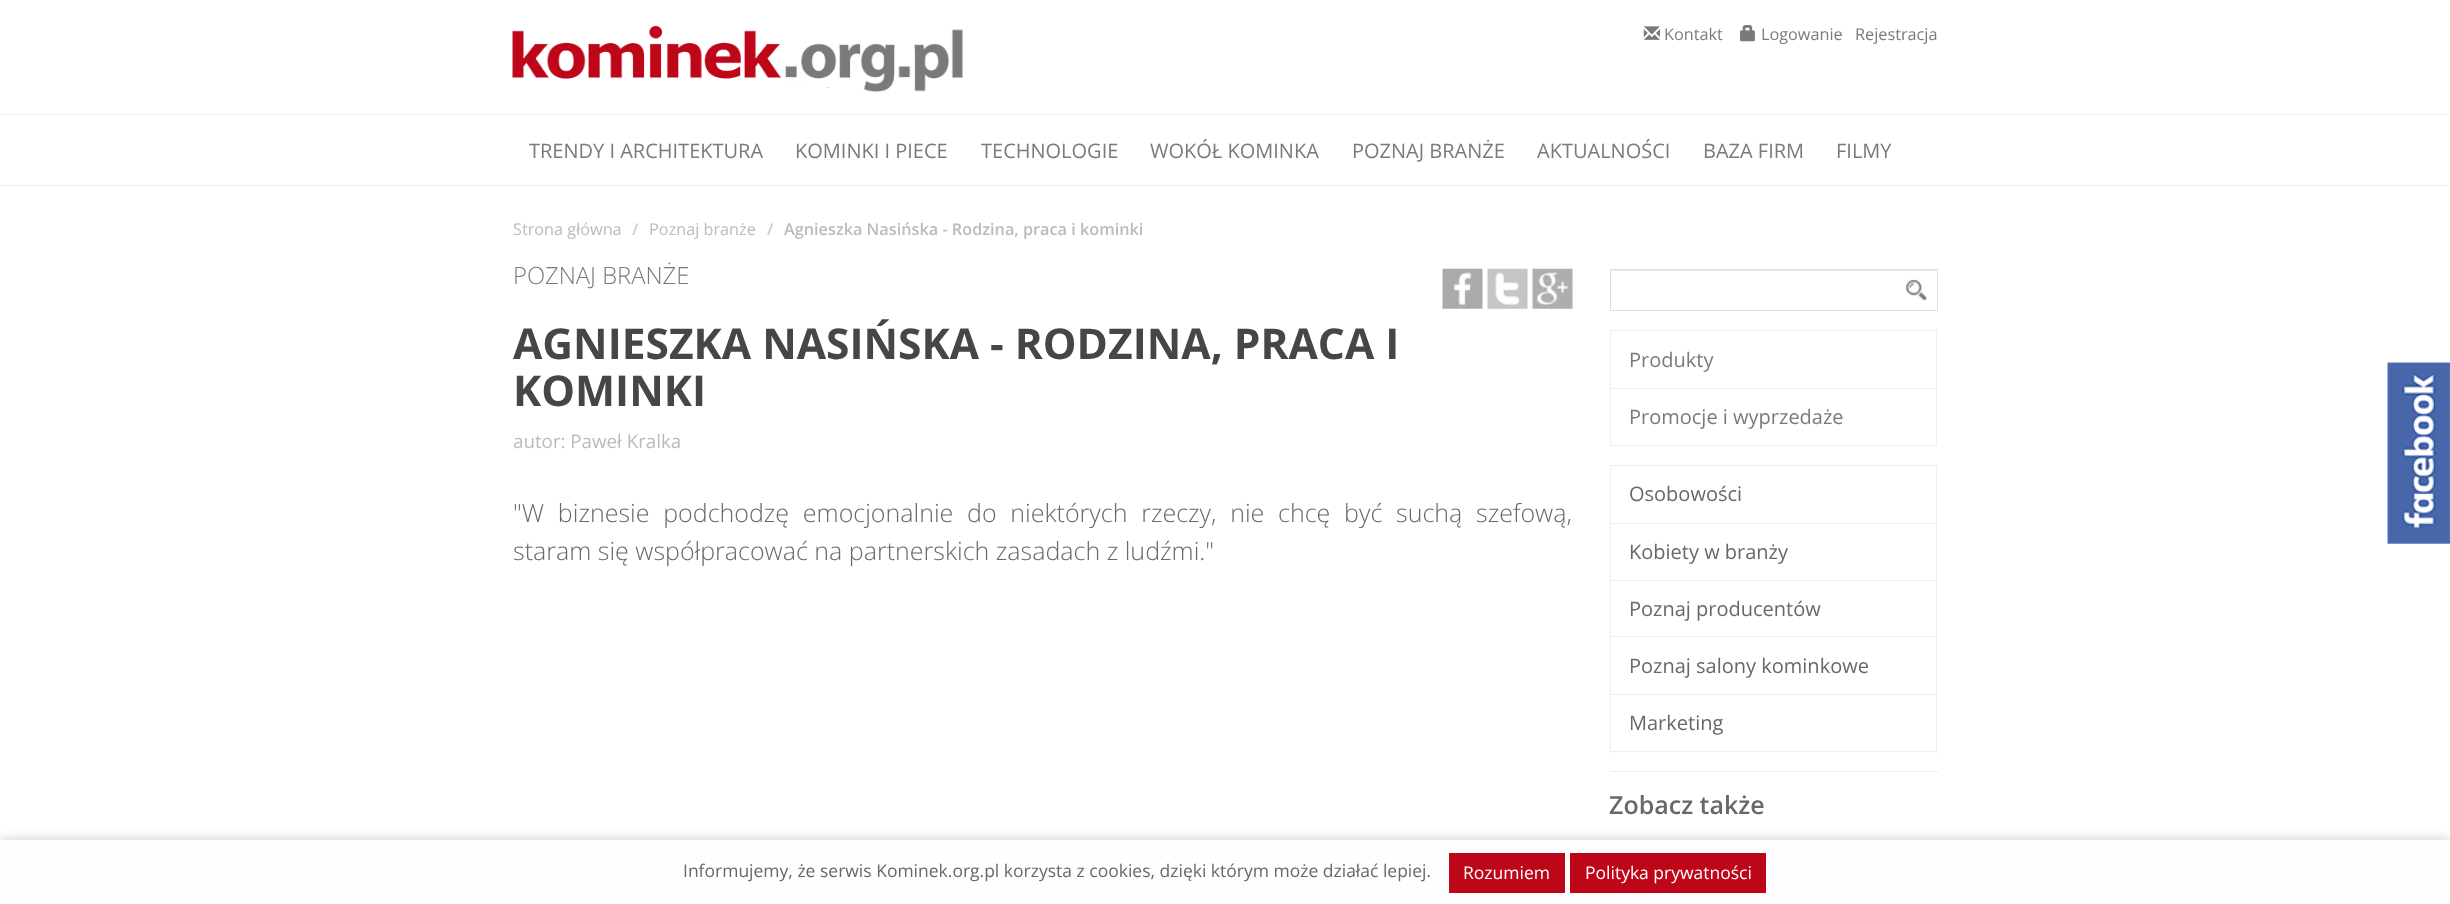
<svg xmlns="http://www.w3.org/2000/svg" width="2450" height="904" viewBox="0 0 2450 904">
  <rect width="100%" height="100%" fill="rgb(255,255,255)"/>
  <image x="512" y="26" width="451" height="67" href="pic1.png"/>
  <image x="1643" y="26" width="17" height="14" href="pic2.png"/>
  <text x="1664" y="40" font-family="Open Sans" font-size="16.25" fill="rgb(123,122,121)">Kontakt</text>
  <image x="1740" y="25" width="15" height="17" href="pic3.png"/>
  <g font-family="Open Sans" font-size="16.25" fill="rgb(123,122,121)">
    <text x="1761" y="40">Logowanie</text>
    <text x="1855" y="40">Rejestracja</text>
  </g>
  <rect x="0" y="114" width="2450" height="1" fill="rgb(238,238,238)"/>
  <rect x="0" y="185" width="2450" height="1" fill="rgb(238,238,238)"/>
  <g font-family="Open Sans" font-size="20" fill="rgb(123,122,121)">
    <text x="529" y="158">TRENDY I ARCHITEKTURA</text>
    <text x="795" y="158">KOMINKI I PIECE</text>
    <text x="981" y="158">TECHNOLOGIE</text>
    <text x="1150" y="158">WOKÓŁ KOMINKA</text>
    <text x="1352" y="158">POZNAJ BRANŻE</text>
    <text x="1537" y="158">AKTUALNOŚCI</text>
    <text x="1703" y="158">BAZA FIRM</text>
    <text x="1836" y="158">FILMY</text>
  </g>
  <text x="513" y="235" font-family="Open Sans" font-size="16.25" fill="rgb(187,187,187)">Strona główna</text>
  <text x="632" y="235" font-family="Open Sans" font-size="16.25" font-weight="600" fill="rgb(204,204,204)">/</text>
  <text x="649" y="235" font-family="Open Sans" font-size="16.25" fill="rgb(187,187,187)">Poznaj branże</text>
  <text x="767" y="235" font-family="Open Sans" font-size="16.25" font-weight="600" fill="rgb(204,204,204)">/</text>
  <text x="784" y="235" font-family="Open Sans" font-size="16.25" font-weight="600" fill="rgb(187,187,187)">Agnieszka Nasińska - Rodzina, praca i kominki</text>
  <text x="513" y="284" font-family="Open Sans" font-size="23.75" font-weight="300" fill="rgb(123,122,121)">POZNAJ BRANŻE</text>
  <image x="1442" y="268" width="41" height="41" href="pic4.png"/>
  <image x="1487" y="268" width="41" height="41" href="pic5.png"/>
  <image x="1532" y="268" width="41" height="41" href="pic6.png"/>
  <g font-family="Open Sans" font-size="42.5" font-weight="bold" fill="rgb(70,70,70)">
    <text>
      <tspan x="513" y="359">AGNIESZKA NASIŃSKA - RODZINA, PRACA I</tspan>
      <tspan x="513" y="406">KOMINKI</tspan>
    </text>
  </g>
  <text x="513" y="448" font-family="Open Sans" font-size="18.75" fill="rgb(187,187,187)">autor: Paweł Kralka</text>
  <g font-family="Open Sans" font-size="25" font-weight="300" fill="rgb(105,104,103)">
    <text>
      <tspan x="513" y="522" word-spacing="7.25">"W biznesie podchodzę emocjonalnie do niektórych rzeczy, nie chcę być suchą szefową,</tspan>
      <tspan x="513" y="560">staram się współpracować na partnerskich zasadach z ludźmi."</tspan>
    </text>
  </g>
  <rect x="1611" y="270" width="325" height="1" fill="rgb(236,236,236)"/>
  <rect x="1610.5" y="269.5" width="327" height="41" fill="none" stroke="rgb(221,221,221)"/>
  <image x="1906" y="279" width="21" height="22" href="pic7.png"/>
  <rect x="1610" y="330" width="328" height="1" fill="rgb(238,238,238)"/>
  <rect x="1936" y="330" width="1" height="116" fill="rgb(238,238,238)"/>
  <rect x="1610" y="330" width="1" height="116" fill="rgb(238,238,238)"/>
  <rect x="1611" y="388" width="325" height="1" fill="rgb(238,238,238)"/>
  <text x="1629" y="367" font-family="Open Sans" font-size="20" fill="rgb(123,122,121)">Produkty</text>
  <rect x="1611" y="445" width="325" height="1" fill="rgb(238,238,238)"/>
  <text x="1629" y="424" font-family="Open Sans" font-size="20" fill="rgb(123,122,121)">Promocje i wyprzedaże</text>
  <rect x="1610" y="465" width="328" height="1" fill="rgb(238,238,238)"/>
  <rect x="1936" y="465" width="1" height="288" fill="rgb(238,238,238)"/>
  <rect x="1610" y="465" width="1" height="288" fill="rgb(238,238,238)"/>
  <rect x="1611" y="523" width="325" height="1" fill="rgb(238,238,238)"/>
  <text x="1629" y="501" font-family="Open Sans" font-size="20" fill="rgb(105,104,103)">Osobowości</text>
  <rect x="1611" y="580" width="325" height="1" fill="rgb(238,238,238)"/>
  <text x="1629" y="559" font-family="Open Sans" font-size="20" fill="rgb(105,104,103)">Kobiety w branży</text>
  <rect x="1611" y="636" width="325" height="1" fill="rgb(238,238,238)"/>
  <text x="1629" y="616" font-family="Open Sans" font-size="20" fill="rgb(105,104,103)">Poznaj producentów</text>
  <rect x="1611" y="694" width="325" height="1" fill="rgb(238,238,238)"/>
  <text x="1629" y="673" font-family="Open Sans" font-size="20" fill="rgb(105,104,103)">Poznaj salony kominkowe</text>
  <rect x="1611" y="751" width="325" height="1" fill="rgb(238,238,238)"/>
  <text x="1629" y="730" font-family="Open Sans" font-size="20" fill="rgb(105,104,103)">Marketing</text>
  <rect x="1610" y="771" width="328" height="1" fill="rgb(238,238,238)"/>
  <text x="1609" y="814" font-family="Open Sans" font-size="25" font-weight="600" fill="rgb(105,104,103)">Zobacz także</text>
  <image x="2387" y="362" width="63" height="182" href="pic8.png"/>
  <rect x="0" y="840" width="2450" height="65" fill="rgb(202,202,202)" filter="blur(6px)"/>
  <rect x="0" y="840" width="2450" height="64" fill="rgb(254,254,254)"/>
  <text x="683" y="877" font-family="Open Sans" font-size="17.5" fill="rgb(105,104,103)">Informujemy, że serwis Kominek.org.pl korzysta z cookies, dzięki którym może działać lepiej.</text>
  <rect x="1449" y="853" width="116" height="40" fill="rgb(190,6,25)"/>
  <text x="1463" y="879" font-family="Open Sans" font-size="17.5" fill="rgb(255,255,255)">Rozumiem</text>
  <rect x="1570" y="853" width="196" height="40" fill="rgb(190,6,25)"/>
  <text x="1585" y="879" font-family="Open Sans" font-size="17.5" fill="rgb(255,255,255)">Polityka prywatności</text>
</svg>
